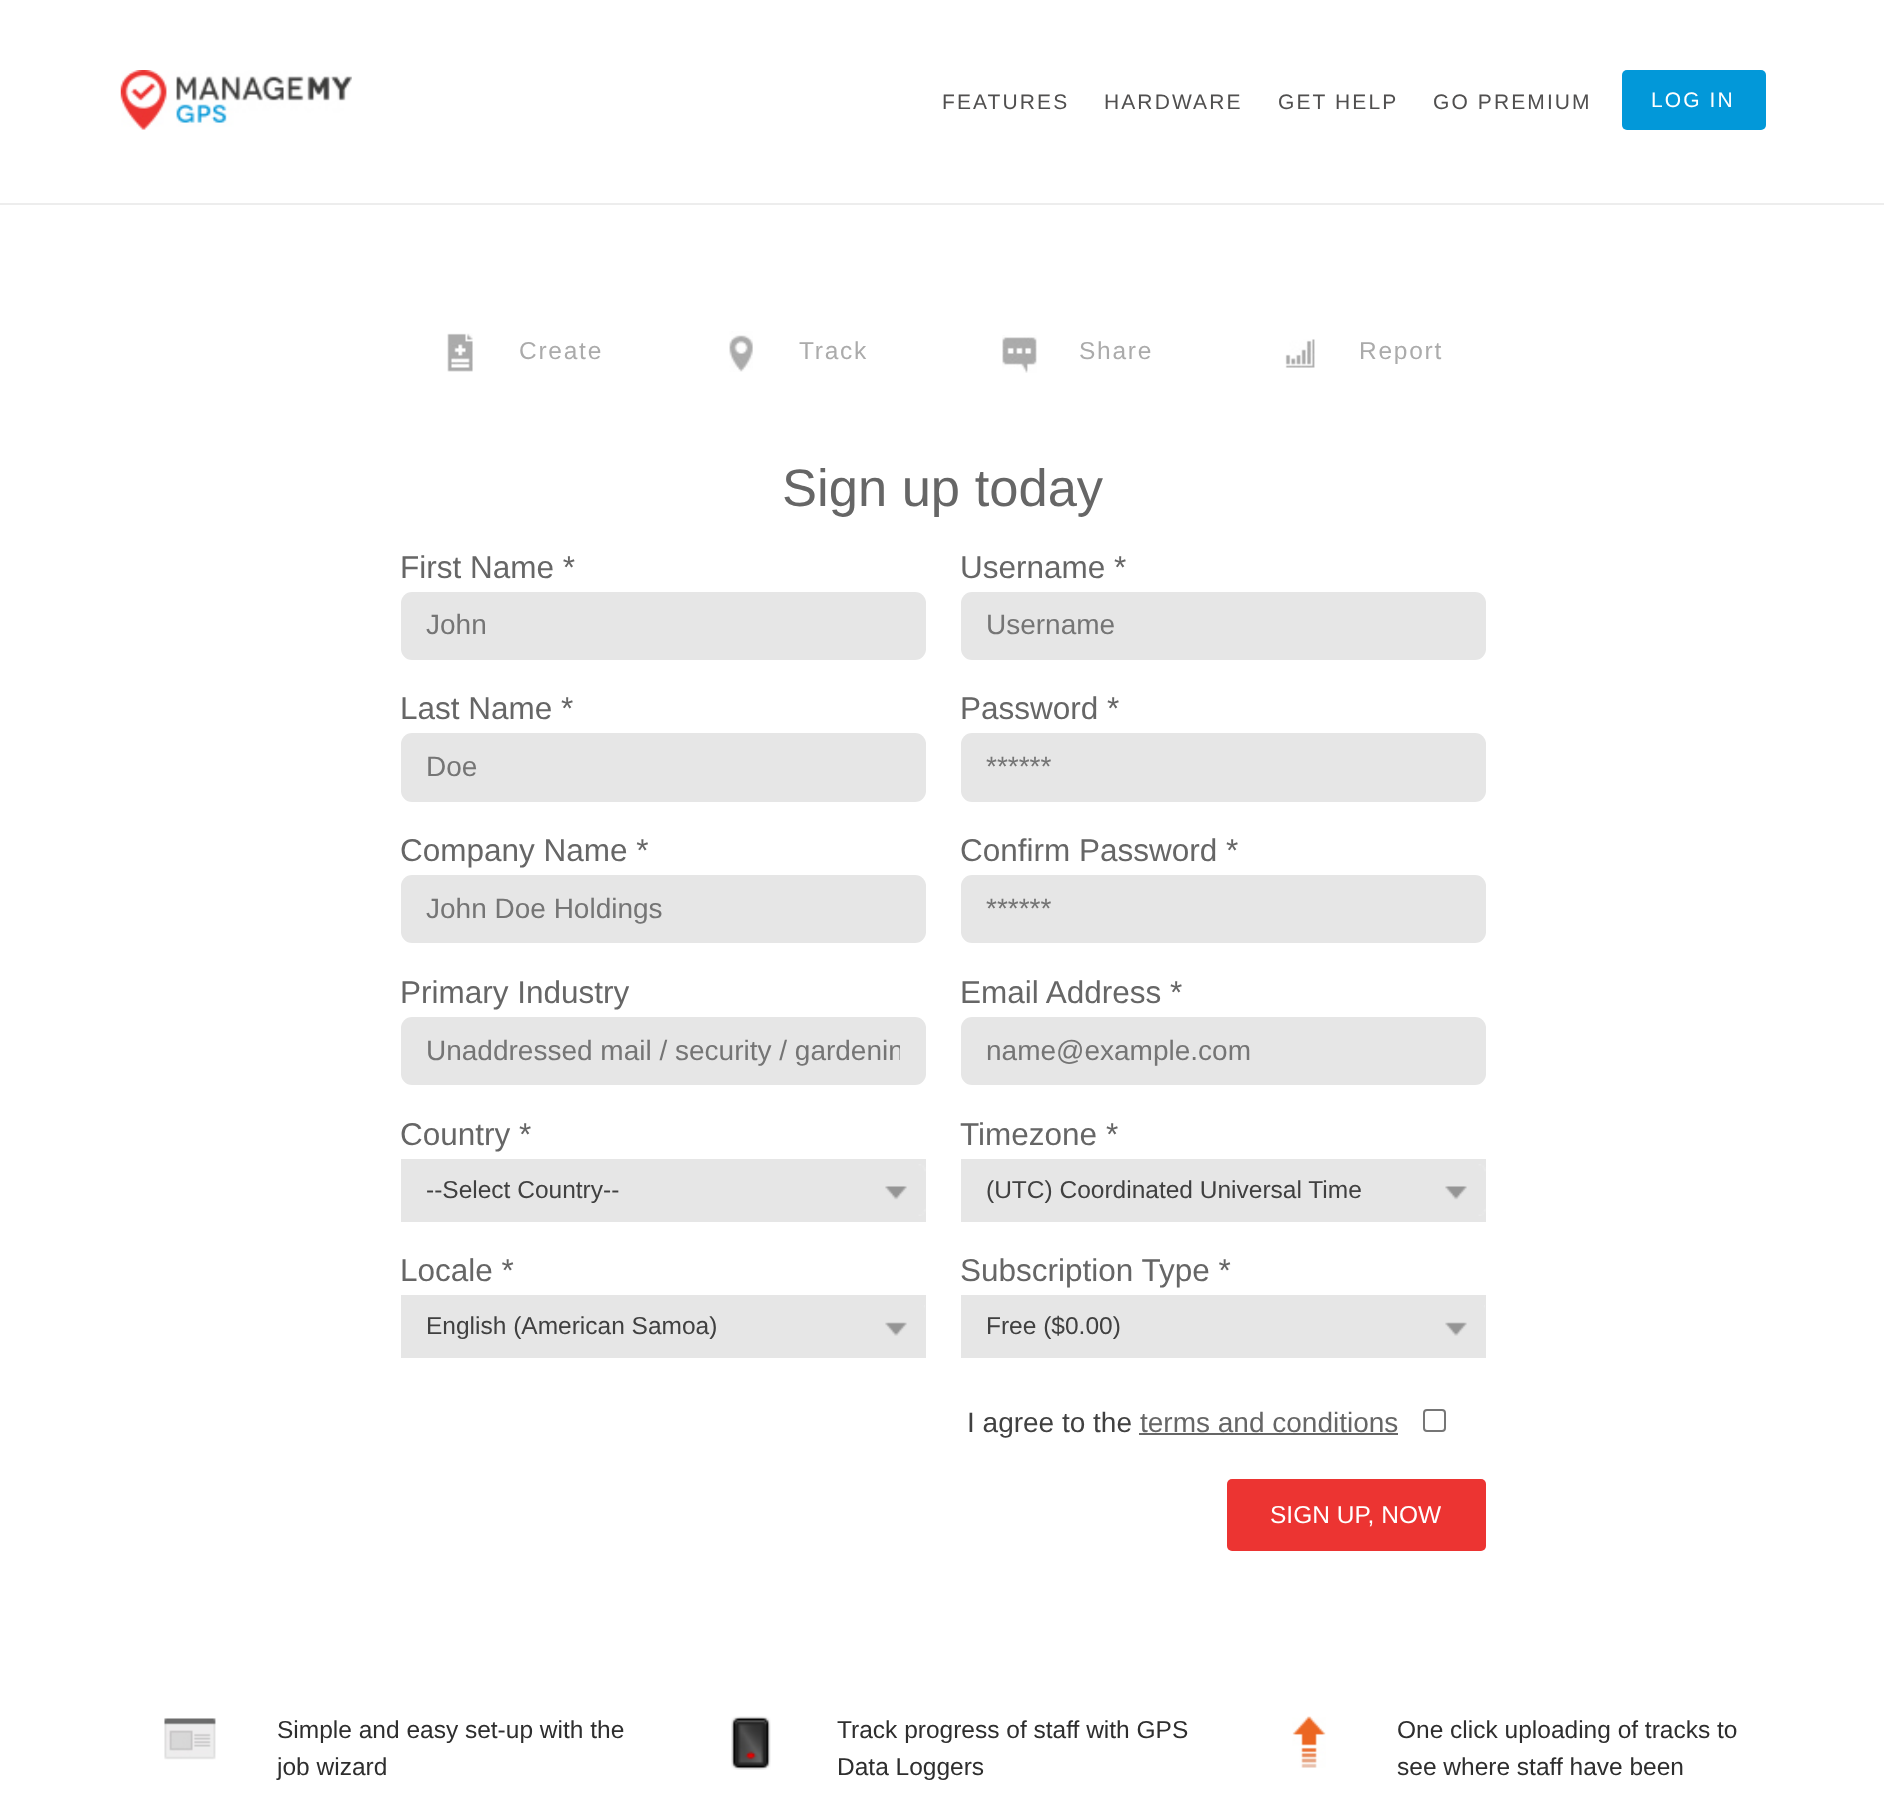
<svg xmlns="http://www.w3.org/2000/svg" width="1884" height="1793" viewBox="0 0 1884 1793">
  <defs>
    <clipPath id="clip1"><rect x="427" y="1036" width="473" height="32"/></clipPath>
  </defs>
  <rect width="100%" height="100%" fill="rgb(255,255,255)"/>
  <rect x="0" y="203" width="1884" height="2" fill="rgb(237,237,237)"/>
  <image x="120" y="70" width="232" height="60" href="pic1.png"/>
  <g font-family="Liberation Sans" font-size="21" letter-spacing="2.1" fill="rgb(80,79,79)">
    <text x="942" y="109">FEATURES</text>
    <text x="1104" y="109">HARDWARE</text>
    <text x="1278" y="109">GET HELP</text>
    <text x="1433" y="109">GO PREMIUM</text>
  </g>
  <rect x="1622" y="70" width="144" height="60" rx="5" fill="rgb(2,152,217)"/>
  <text x="1651" y="107" font-family="Liberation Sans" font-size="21" letter-spacing="2.1" fill="rgb(255,255,255)">LOG IN</text>
  <image x="447" y="333" width="26" height="39" href="pic2.png"/>
  <text x="519" y="359" font-family="Liberation Sans" font-size="24.5" letter-spacing="1.75" fill="rgb(171,171,171)">Create</text>
  <image x="729" y="331" width="24" height="41" href="pic3.png"/>
  <text x="799" y="359" font-family="Liberation Sans" font-size="24.5" letter-spacing="1.75" fill="rgb(171,171,171)">Track</text>
  <image x="1002" y="335" width="35" height="38" href="pic4.png"/>
  <text x="1079" y="359" font-family="Liberation Sans" font-size="24.5" letter-spacing="1.75" fill="rgb(171,171,171)">Share</text>
  <image x="1285" y="339" width="30" height="29" href="pic5.png"/>
  <text x="1359" y="359" font-family="Liberation Sans" font-size="24.5" letter-spacing="1.75" fill="rgb(171,171,171)">Report</text>
  <text x="782" y="506" font-family="Liberation Sans" font-size="52.5" fill="rgb(102,102,102)">Sign up today</text>
  <text x="400" y="578" font-family="Liberation Sans" font-size="31.5" fill="rgb(102,102,102)">First Name *</text>
  <rect x="401" y="592" width="525" height="68" rx="11" fill="rgb(230,230,230)"/>
  <text x="426" y="634" font-family="Liberation Sans" font-size="28" fill="rgb(117,117,117)">John</text>
  <text x="400" y="719" font-family="Liberation Sans" font-size="31.5" fill="rgb(102,102,102)">Last Name *</text>
  <rect x="401" y="733" width="525" height="69" rx="11" fill="rgb(230,230,230)"/>
  <text x="426" y="776" font-family="Liberation Sans" font-size="28" fill="rgb(117,117,117)">Doe</text>
  <text x="400" y="861" font-family="Liberation Sans" font-size="31.5" fill="rgb(102,102,102)">Company Name *</text>
  <rect x="401" y="875" width="525" height="68" rx="11" fill="rgb(230,230,230)"/>
  <text x="426" y="918" font-family="Liberation Sans" font-size="28" fill="rgb(117,117,117)">John Doe Holdings</text>
  <text x="400" y="1003" font-family="Liberation Sans" font-size="31.5" fill="rgb(102,102,102)">Primary Industry</text>
  <rect x="401" y="1017" width="525" height="68" rx="11" fill="rgb(230,230,230)"/>
  <g clip-path="url(#clip1)">
    <text x="426" y="1060" font-family="Liberation Sans" font-size="28" fill="rgb(117,117,117)">Unaddressed mail / security / gardenin</text>
  </g>
  <text x="400" y="1145" font-family="Liberation Sans" font-size="31.5" fill="rgb(102,102,102)">Country *</text>
  <rect x="401" y="1159" width="525" height="63" fill="rgb(230,230,230)"/>
  <image x="885" y="1164" width="41" height="52" href="pic6.png"/>
  <text x="426" y="1198" font-family="Liberation Sans" font-size="24.5" fill="rgb(64,64,64)">--Select Country--</text>
  <text x="400" y="1281" font-family="Liberation Sans" font-size="31.5" fill="rgb(102,102,102)">Locale *</text>
  <rect x="401" y="1295" width="525" height="63" fill="rgb(230,230,230)"/>
  <image x="885" y="1305" width="40" height="31" href="pic7.png"/>
  <text x="426" y="1334" font-family="Liberation Sans" font-size="24.5" fill="rgb(64,64,64)">English (American Samoa)</text>
  <text x="960" y="578" font-family="Liberation Sans" font-size="31.5" fill="rgb(102,102,102)">Username *</text>
  <rect x="961" y="592" width="525" height="68" rx="11" fill="rgb(230,230,230)"/>
  <text x="986" y="634" font-family="Liberation Sans" font-size="28" fill="rgb(117,117,117)">Username</text>
  <text x="960" y="719" font-family="Liberation Sans" font-size="31.5" fill="rgb(102,102,102)">Password *</text>
  <rect x="961" y="733" width="525" height="69" rx="11" fill="rgb(230,230,230)"/>
  <text x="986" y="776" font-family="Liberation Sans" font-size="28" fill="rgb(117,117,117)">******</text>
  <text x="960" y="861" font-family="Liberation Sans" font-size="31.5" fill="rgb(102,102,102)">Confirm Password *</text>
  <rect x="961" y="875" width="525" height="68" rx="11" fill="rgb(230,230,230)"/>
  <text x="986" y="918" font-family="Liberation Sans" font-size="28" fill="rgb(117,117,117)">******</text>
  <text x="960" y="1003" font-family="Liberation Sans" font-size="31.5" fill="rgb(102,102,102)">Email Address *</text>
  <rect x="961" y="1017" width="525" height="68" rx="11" fill="rgb(230,230,230)"/>
  <text x="986" y="1060" font-family="Liberation Sans" font-size="28" fill="rgb(117,117,117)">name@example.com</text>
  <text x="960" y="1145" font-family="Liberation Sans" font-size="31.5" fill="rgb(102,102,102)">Timezone *</text>
  <rect x="961" y="1159" width="525" height="63" fill="rgb(230,230,230)"/>
  <image x="1445" y="1164" width="41" height="52" href="pic6.png"/>
  <text x="986" y="1198" font-family="Liberation Sans" font-size="24.5" fill="rgb(64,64,64)">(UTC) Coordinated Universal Time</text>
  <text x="960" y="1281" font-family="Liberation Sans" font-size="31.5" fill="rgb(102,102,102)">Subscription Type *</text>
  <rect x="961" y="1295" width="525" height="63" fill="rgb(230,230,230)"/>
  <image x="1445" y="1305" width="40" height="31" href="pic7.png"/>
  <text x="986" y="1334" font-family="Liberation Sans" font-size="24.5" fill="rgb(64,64,64)">Free ($0.00)</text>
  <text x="967" y="1432" font-family="Liberation Sans" font-size="28" fill="rgb(64,64,64)">I agree to the</text>
  <text x="1140" y="1432" font-family="Liberation Sans" font-size="28" fill="rgb(102,102,102)">terms and conditions</text>
  <rect x="1139" y="1433" width="259" height="2" fill="rgb(102,102,102)"/>
  <rect x="1424" y="1410" width="21" height="21" rx="3" fill="none" stroke="rgb(118,118,118)" stroke-width="2"/>
  <rect x="1227" y="1479" width="259" height="72" rx="5" fill="rgb(236,52,50)"/>
  <text x="1270" y="1523" font-family="Liberation Sans" font-size="24.5" fill="rgb(255,255,255)">SIGN UP, NOW</text>
  <image x="164" y="1718" width="52" height="42" href="pic8.png"/>
  <g font-family="Liberation Sans" font-size="24.5" fill="rgb(46,46,46)">
    <text>
      <tspan x="277" y="1738">Simple and easy set-up with the</tspan>
      <tspan x="277" y="1775">job wizard</tspan>
    </text>
  </g>
  <image x="731" y="1716" width="40" height="54" href="pic9.png"/>
  <g font-family="Liberation Sans" font-size="24.5" fill="rgb(46,46,46)">
    <text>
      <tspan x="837" y="1738">Track progress of staff with GPS</tspan>
      <tspan x="837" y="1775">Data Loggers</tspan>
    </text>
  </g>
  <image x="1292" y="1716" width="34" height="52" href="pic10.png"/>
  <g font-family="Liberation Sans" font-size="24.5" fill="rgb(46,46,46)">
    <text>
      <tspan x="1397" y="1738">One click uploading of tracks to</tspan>
      <tspan x="1397" y="1775">see where staff have been</tspan>
    </text>
  </g>
</svg>
